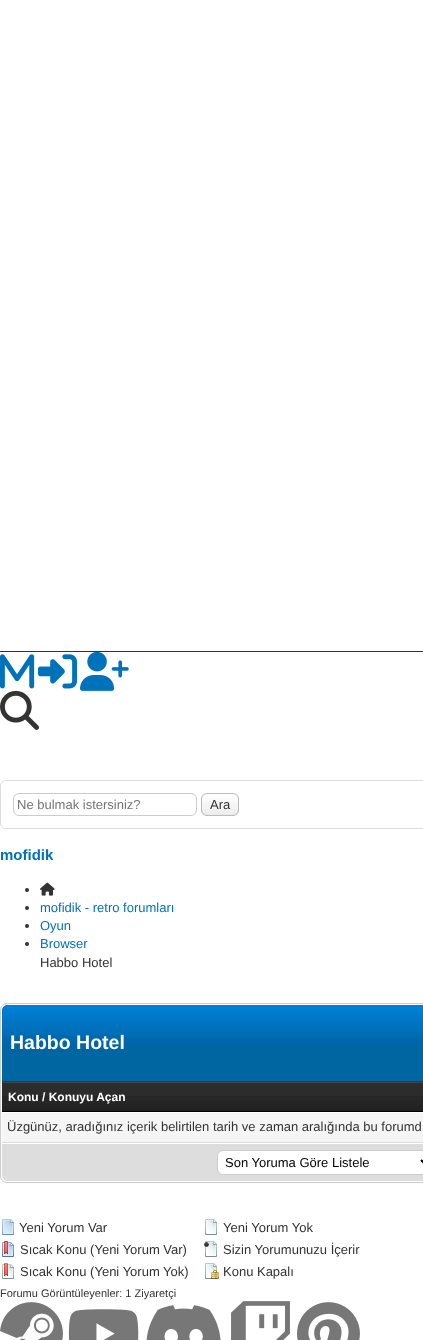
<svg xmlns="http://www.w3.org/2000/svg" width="423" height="1340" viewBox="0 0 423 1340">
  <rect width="100%" height="100%" fill="rgb(255,255,255)"/>
  <rect x="0" y="651" width="423" height="1" fill="rgb(38,60,48)"/>
  <image x="0" y="654" width="35" height="35" href="pic1.png"/>
  <image x="38" y="654" width="39" height="35" href="pic2.png"/>
  <image x="80" y="651" width="49" height="40" href="pic3.png"/>
  <image x="0" y="690" width="39" height="40" href="pic4.png"/>
  <rect x="0.5" y="780.5" width="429" height="48" rx="5.5" fill="none" stroke="rgb(221,221,221)"/>
  <rect x="13.5" y="793.5" width="183" height="22" rx="5.5" fill="none" stroke="rgb(204,204,204)"/>
  <text x="17" y="809" font-family="Liberation Sans" font-size="13" fill="rgb(117,117,117)">Ne bulmak istersiniz?</text>
  <image x="201" y="794" width="38" height="22" href="pic5.png"/>
  <rect x="201.5" y="793.5" width="37" height="22" rx="5.5" fill="none" stroke="rgb(187,187,187)"/>
  <text x="210" y="809" font-family="Liberation Sans" font-size="13" fill="rgb(51,51,51)">Ara</text>
  <text x="0" y="860" font-family="Liberation Sans" font-size="15" font-weight="bold" fill="rgb(0,114,188)">mofidik</text>
  <circle cx="27" cy="890" r="2" fill="rgb(51,51,51)"/>
  <image x="40" y="882" width="15" height="14" href="pic6.png"/>
  <circle cx="27" cy="908" r="2" fill="rgb(51,51,51)"/>
  <text x="40" y="912" font-family="Liberation Sans" font-size="13" fill="rgb(0,114,188)">mofidik - retro forumları</text>
  <circle cx="27" cy="926" r="2" fill="rgb(51,51,51)"/>
  <text x="40" y="930" font-family="Liberation Sans" font-size="13" fill="rgb(0,114,188)">Oyun</text>
  <circle cx="27" cy="944" r="2" fill="rgb(51,51,51)"/>
  <text x="40" y="948" font-family="Liberation Sans" font-size="13" fill="rgb(0,114,188)">Browser</text>
  <text x="40" y="967" font-family="Liberation Sans" font-size="13" fill="rgb(51,51,51)">Habbo Hotel</text>
  <rect x="0.5" y="1003.5" width="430" height="179" rx="6.5" fill="none" stroke="rgb(204,204,204)"/>
  <path d="M8 1005H423C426.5 1005 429 1007.5 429 1011V1082H2V1011C2 1007.5 4.5 1005 8 1005Z" fill="rgb(0,102,162)"/>
  <image x="2" y="1005" width="421" height="40" href="pic7.png"/>
  <rect x="2" y="1081" width="421" height="1" fill="rgb(38,60,48)"/>
  <text x="10" y="1049" font-family="Liberation Sans" font-size="19.5" font-weight="bold" fill="rgb(255,255,255)">Habbo Hotel</text>
  <image x="2" y="1083" width="421" height="28" href="pic8.png"/>
  <rect x="2" y="1082" width="421" height="1" fill="rgb(68,68,68)"/>
  <rect x="2" y="1111" width="421" height="1" fill="rgb(0,0,0)"/>
  <text x="8" y="1101" font-family="Liberation Sans" font-size="12" font-weight="bold" fill="rgb(255,255,255)">Konu / Konuyu Açan</text>
  <rect x="2" y="1113" width="421" height="29" fill="rgb(245,245,245)"/>
  <rect x="2" y="1142" width="421" height="1" fill="rgb(221,221,221)"/>
  <text x="7" y="1131" font-family="Liberation Sans" font-size="13" fill="rgb(51,51,51)">Üzgünüz, aradığınız içerik belirtilen tarih ve zaman aralığında bu forumd</text>
  <path d="M2 1143H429V1175C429 1178.5 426.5 1181 423 1181H8C4.5 1181 2 1178.5 2 1175Z" fill="rgb(221,221,221)"/>
  <rect x="2" y="1143" width="421" height="1" fill="rgb(255,255,255)"/>
  <rect x="217.5" y="1150.5" width="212" height="24" rx="5.5" fill="rgb(255,255,255)" stroke="rgb(204,204,204)"/>
  <path d="M421 1160L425 1164L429 1160" fill="none" stroke="rgb(0,0,0)" stroke-width="2"/>
  <text x="225" y="1167" font-family="Liberation Sans" font-size="13" fill="rgb(0,0,0)">Son Yoruma Göre Listele</text>
  <image x="2" y="1219" width="12" height="16" href="pic9.png"/>
  <text x="19" y="1232" font-family="Liberation Sans" font-size="13" fill="rgb(51,51,51)">Yeni Yorum Var</text>
  <image x="2" y="1241" width="12" height="16" href="pic10.png"/>
  <text x="20" y="1254" font-family="Liberation Sans" font-size="13" fill="rgb(51,51,51)">Sıcak Konu (Yeni Yorum Var)</text>
  <image x="2" y="1263" width="12" height="16" href="pic11.png"/>
  <text x="20" y="1276" font-family="Liberation Sans" font-size="13" fill="rgb(51,51,51)">Sıcak Konu (Yeni Yorum Yok)</text>
  <image x="205" y="1219" width="12" height="16" href="pic12.png"/>
  <text x="223" y="1232" font-family="Liberation Sans" font-size="13" fill="rgb(51,51,51)">Yeni Yorum Yok</text>
  <image x="204" y="1241" width="13" height="16" href="pic13.png"/>
  <text x="223" y="1254" font-family="Liberation Sans" font-size="13" fill="rgb(51,51,51)">Sizin Yorumunuzu İçerir</text>
  <image x="205" y="1263" width="14" height="16" href="pic14.png"/>
  <text x="223" y="1276" font-family="Liberation Sans" font-size="13" fill="rgb(51,51,51)">Konu Kapalı</text>
  <text x="0" y="1297" font-family="Liberation Sans" font-size="11" fill="rgb(51,51,51)">Forumu Görüntüleyenler: 1 Ziyaretçi</text>
  <image x="0" y="1302" width="63" height="38" href="pic15.png"/>
  <image x="68" y="1309" width="71" height="31" href="pic16.png"/>
  <image x="146" y="1305" width="75" height="35" href="pic17.png"/>
  <image x="231" y="1301" width="59" height="39" href="pic18.png"/>
  <image x="297" y="1302" width="63" height="38" href="pic19.png"/>
</svg>
